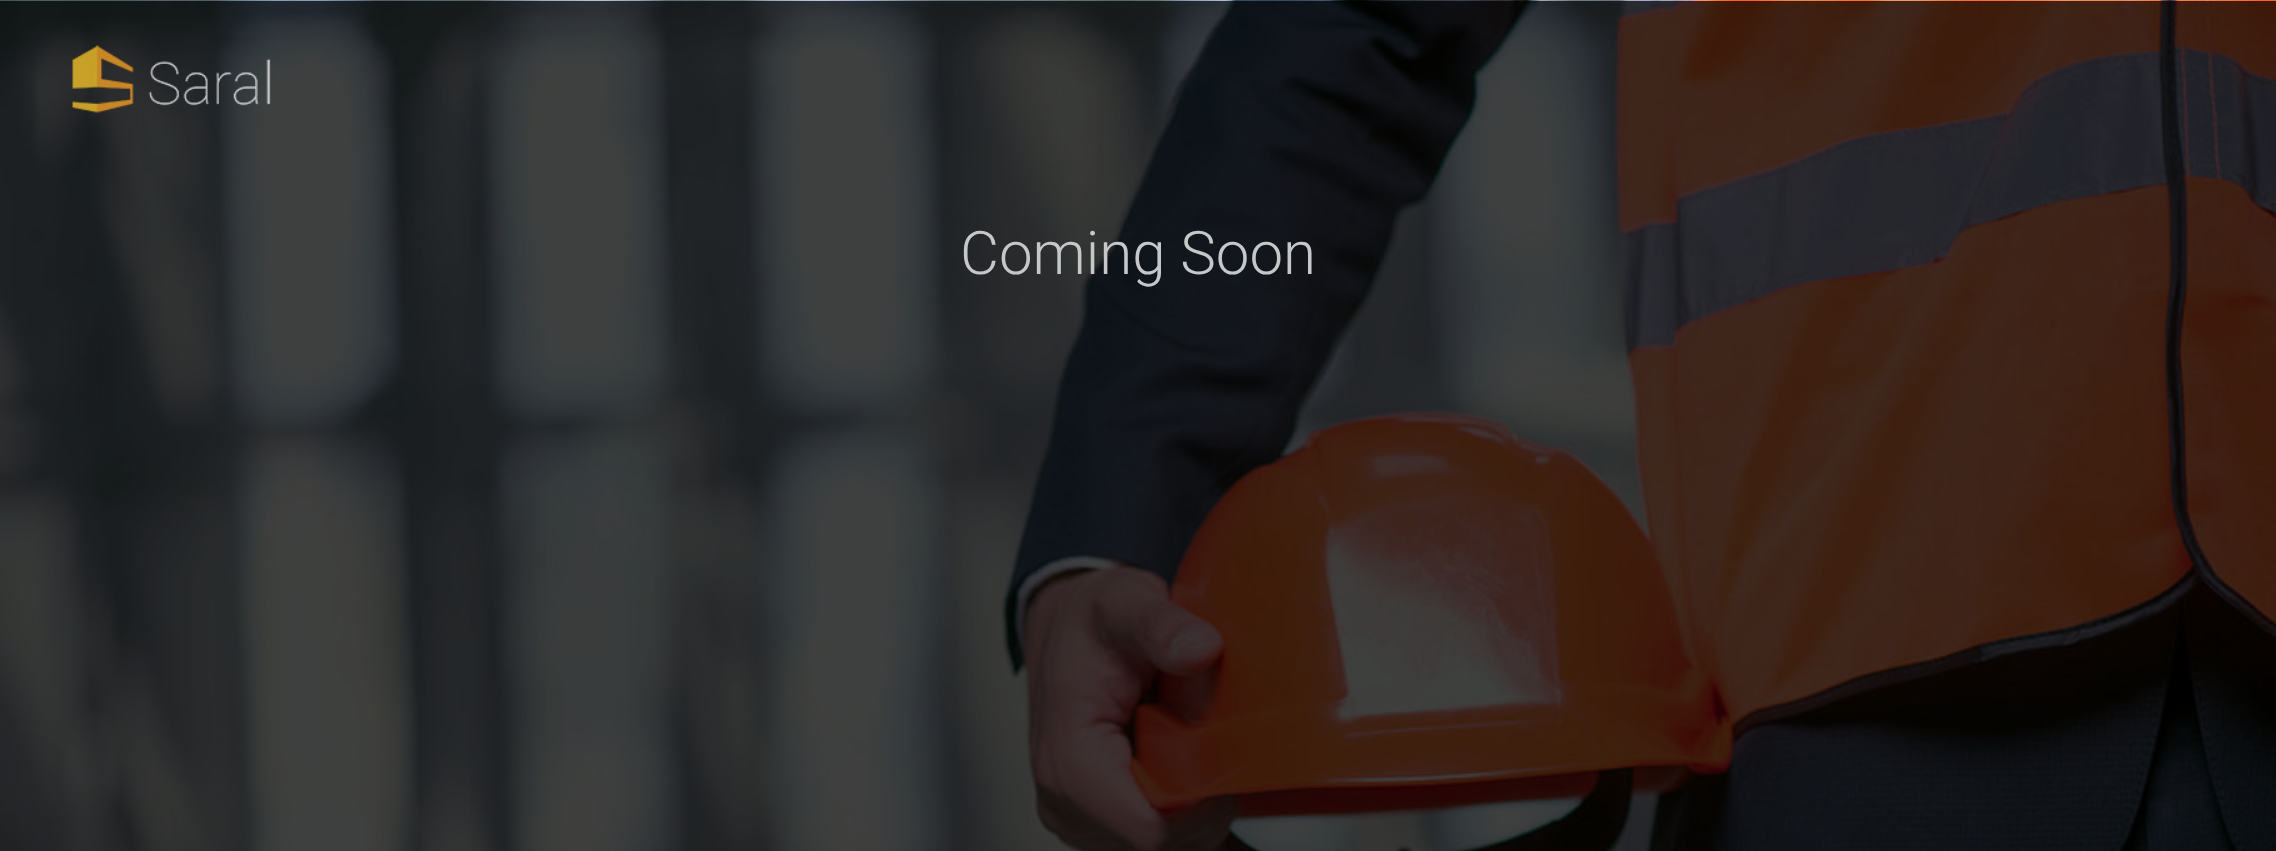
<svg xmlns="http://www.w3.org/2000/svg" width="2276" height="851" viewBox="0 0 2276 851">
  <rect width="100%" height="100%" fill="rgb(255,255,255)"/>
  <image x="0" y="0" width="2276" height="1" href="pic1.png"/>
  <image x="0" y="1" width="2276" height="850" href="pic2.png"/>
  <image x="72" y="45" width="199" height="68" href="pic3.png"/>
  <text x="960" y="274" font-family="Roboto" font-size="60" font-weight="300" fill="rgb(198,199,200)">Coming Soon</text>
</svg>
